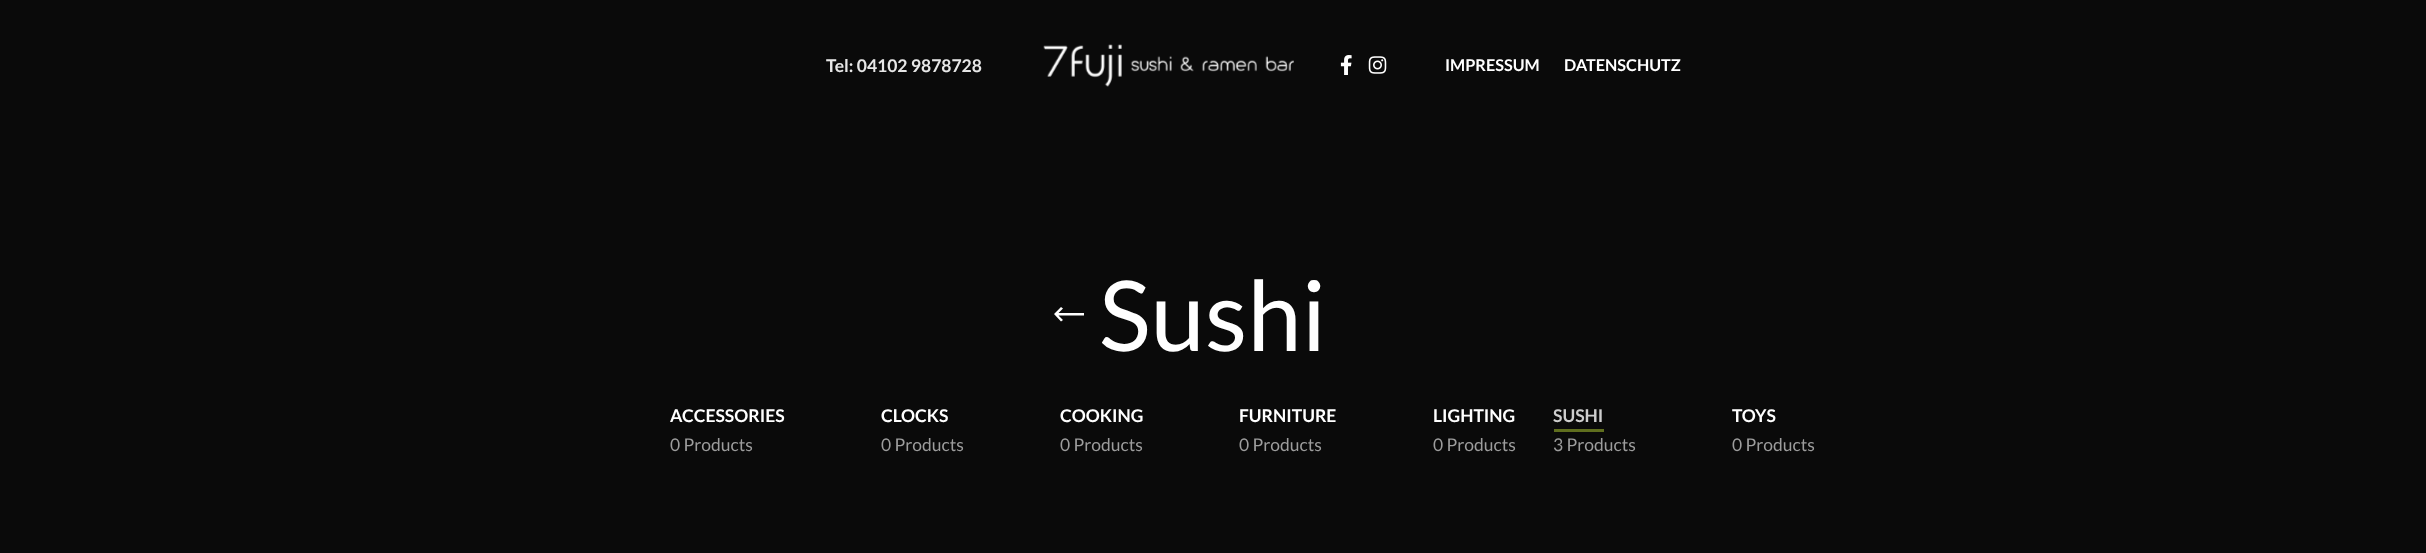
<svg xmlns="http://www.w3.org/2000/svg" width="2426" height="553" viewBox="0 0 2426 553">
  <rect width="100%" height="100%" fill="rgb(10,10,10)"/>
  <text x="826" y="72" font-family="Lato" font-size="17.5" font-weight="bold" fill="rgb(231,231,231)">Tel: 04102 9878728</text>
  <image x="1043" y="44" width="251" height="43" href="pic1.png"/>
  <image x="1340" y="55" width="12" height="20" href="pic2.png"/>
  <image x="1368" y="56" width="19" height="18" href="pic3.png"/>
  <g font-family="Lato" font-size="16.25" font-weight="bold" fill="rgb(255,255,255)">
    <text x="1445" y="71">IMPRESSUM</text>
    <text x="1564" y="71">DATENSCHUTZ</text>
  </g>
  <path d="M1063 320L1058.5 315.5H1084V313H1058.5L1063 308.5L1061 307L1054 314L1061 321.5Z" fill="rgb(255,255,255)"/>
  <text x="1099" y="351" font-family="Lato" font-size="97.5" fill="rgb(255,255,255)">Sushi</text>
  <text x="670" y="422" font-family="Lato" font-size="17.5" font-weight="bold" fill="rgb(255,255,255)">ACCESSORIES</text>
  <text x="670" y="451" font-family="Lato" font-size="17.5" fill="rgb(157,157,157)">0 Products</text>
  <text x="881" y="422" font-family="Lato" font-size="17.5" font-weight="bold" fill="rgb(255,255,255)">CLOCKS</text>
  <text x="881" y="451" font-family="Lato" font-size="17.5" fill="rgb(157,157,157)">0 Products</text>
  <text x="1060" y="422" font-family="Lato" font-size="17.5" font-weight="bold" fill="rgb(255,255,255)">COOKING</text>
  <text x="1060" y="451" font-family="Lato" font-size="17.5" fill="rgb(157,157,157)">0 Products</text>
  <text x="1239" y="422" font-family="Lato" font-size="17.5" font-weight="bold" fill="rgb(255,255,255)">FURNITURE</text>
  <text x="1239" y="451" font-family="Lato" font-size="17.5" fill="rgb(157,157,157)">0 Products</text>
  <text x="1433" y="422" font-family="Lato" font-size="17.5" font-weight="bold" fill="rgb(255,255,255)">LIGHTING</text>
  <text x="1433" y="451" font-family="Lato" font-size="17.5" fill="rgb(157,157,157)">0 Products</text>
  <text x="1553" y="422" font-family="Lato" font-size="17.5" font-weight="bold" fill="rgb(206,206,206)">SUSHI</text>
  <rect x="1554" y="429" width="50" height="3" fill="rgb(95,110,30)"/>
  <text x="1553" y="451" font-family="Lato" font-size="17.5" fill="rgb(157,157,157)">3 Products</text>
  <text x="1732" y="422" font-family="Lato" font-size="17.5" font-weight="bold" fill="rgb(255,255,255)">TOYS</text>
  <text x="1732" y="451" font-family="Lato" font-size="17.5" fill="rgb(157,157,157)">0 Products</text>
</svg>
